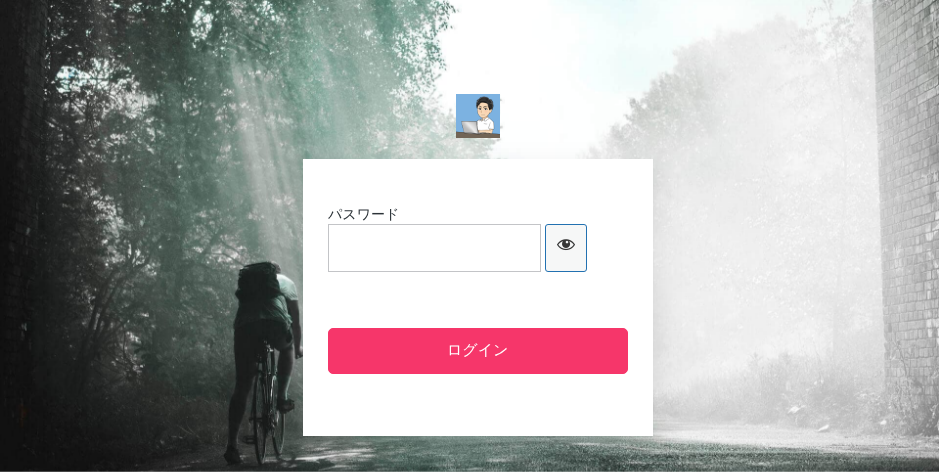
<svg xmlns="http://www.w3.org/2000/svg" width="939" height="472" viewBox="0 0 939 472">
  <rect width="100%" height="100%" fill="rgb(255,255,255)"/>
  <image x="0" y="0" width="939" height="472" href="pic1.png"/>
  <rect x="303" y="171" width="350" height="277" fill="rgba(0,0,0,0.1)" filter="blur(15px)"/>
  <image x="456" y="94" width="44" height="44" href="pic2.png"/>
  <rect x="303" y="159" width="350" height="277" fill="rgb(255,255,255)"/>
  <text x="328" y="219" font-family="WenQuanYi Zen Hei" font-size="14" font-weight="500" fill="rgb(44,51,56)">パスワード</text>
  <rect x="328.5" y="224.5" width="212" height="47" fill="none" stroke="rgb(195,196,199)"/>
  <rect x="545.5" y="224.5" width="41" height="47" rx="2.5" fill="rgb(246,247,247)" stroke="rgb(34,113,177)"/>
  <image x="557" y="239" width="18" height="12" href="pic3.png"/>
  <rect x="328.5" y="328.5" width="299" height="45" rx="4.5" fill="rgb(246,54,106)" stroke="rgb(246,54,106)"/>
  <text x="447" y="355" font-family="WenQuanYi Zen Hei" font-size="15" font-weight="500" fill="rgb(255,255,255)">ログイン</text>
</svg>
